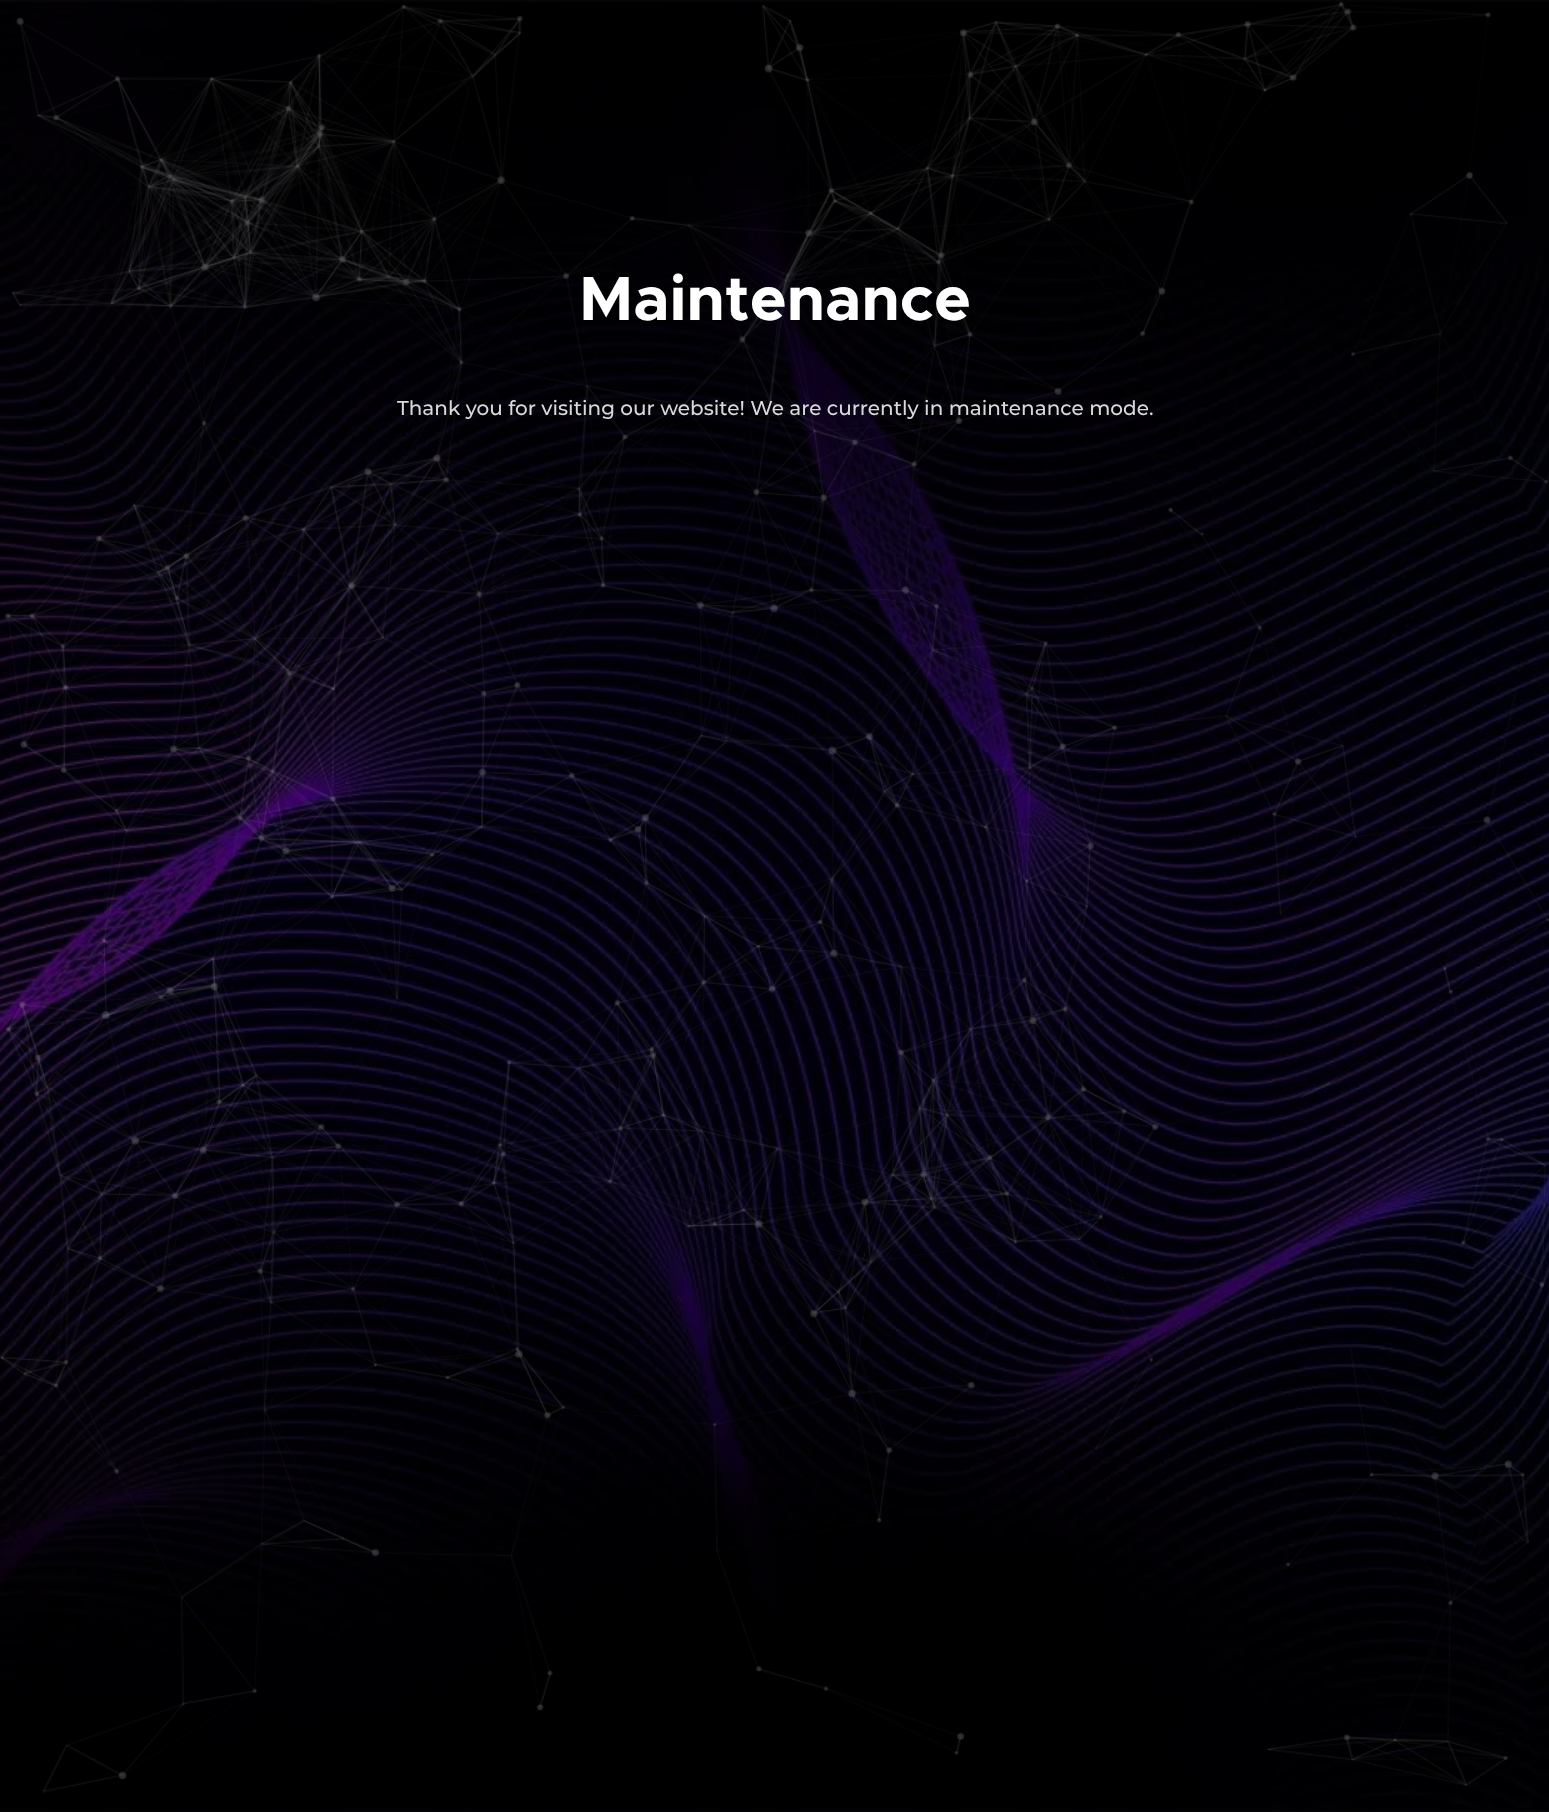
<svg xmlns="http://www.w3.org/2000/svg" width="1549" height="1812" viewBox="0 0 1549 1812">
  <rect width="100%" height="100%" fill="rgb(255,255,255)"/>
  <image x="0" y="0" width="1549" height="1812" href="pic1.png"/>
  <image x="0" y="1" width="1549" height="1792" href="pic2.png"/>
  <text x="579" y="320" font-family="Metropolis" font-size="62.5" font-weight="bold" fill="rgb(255,255,255)">Maintenance</text>
  <text x="397" y="415" font-family="Montserrat" font-size="20" font-weight="100" fill="rgb(217,217,218)">Thank you for visiting our website! We are currently in maintenance mode.</text>
</svg>
